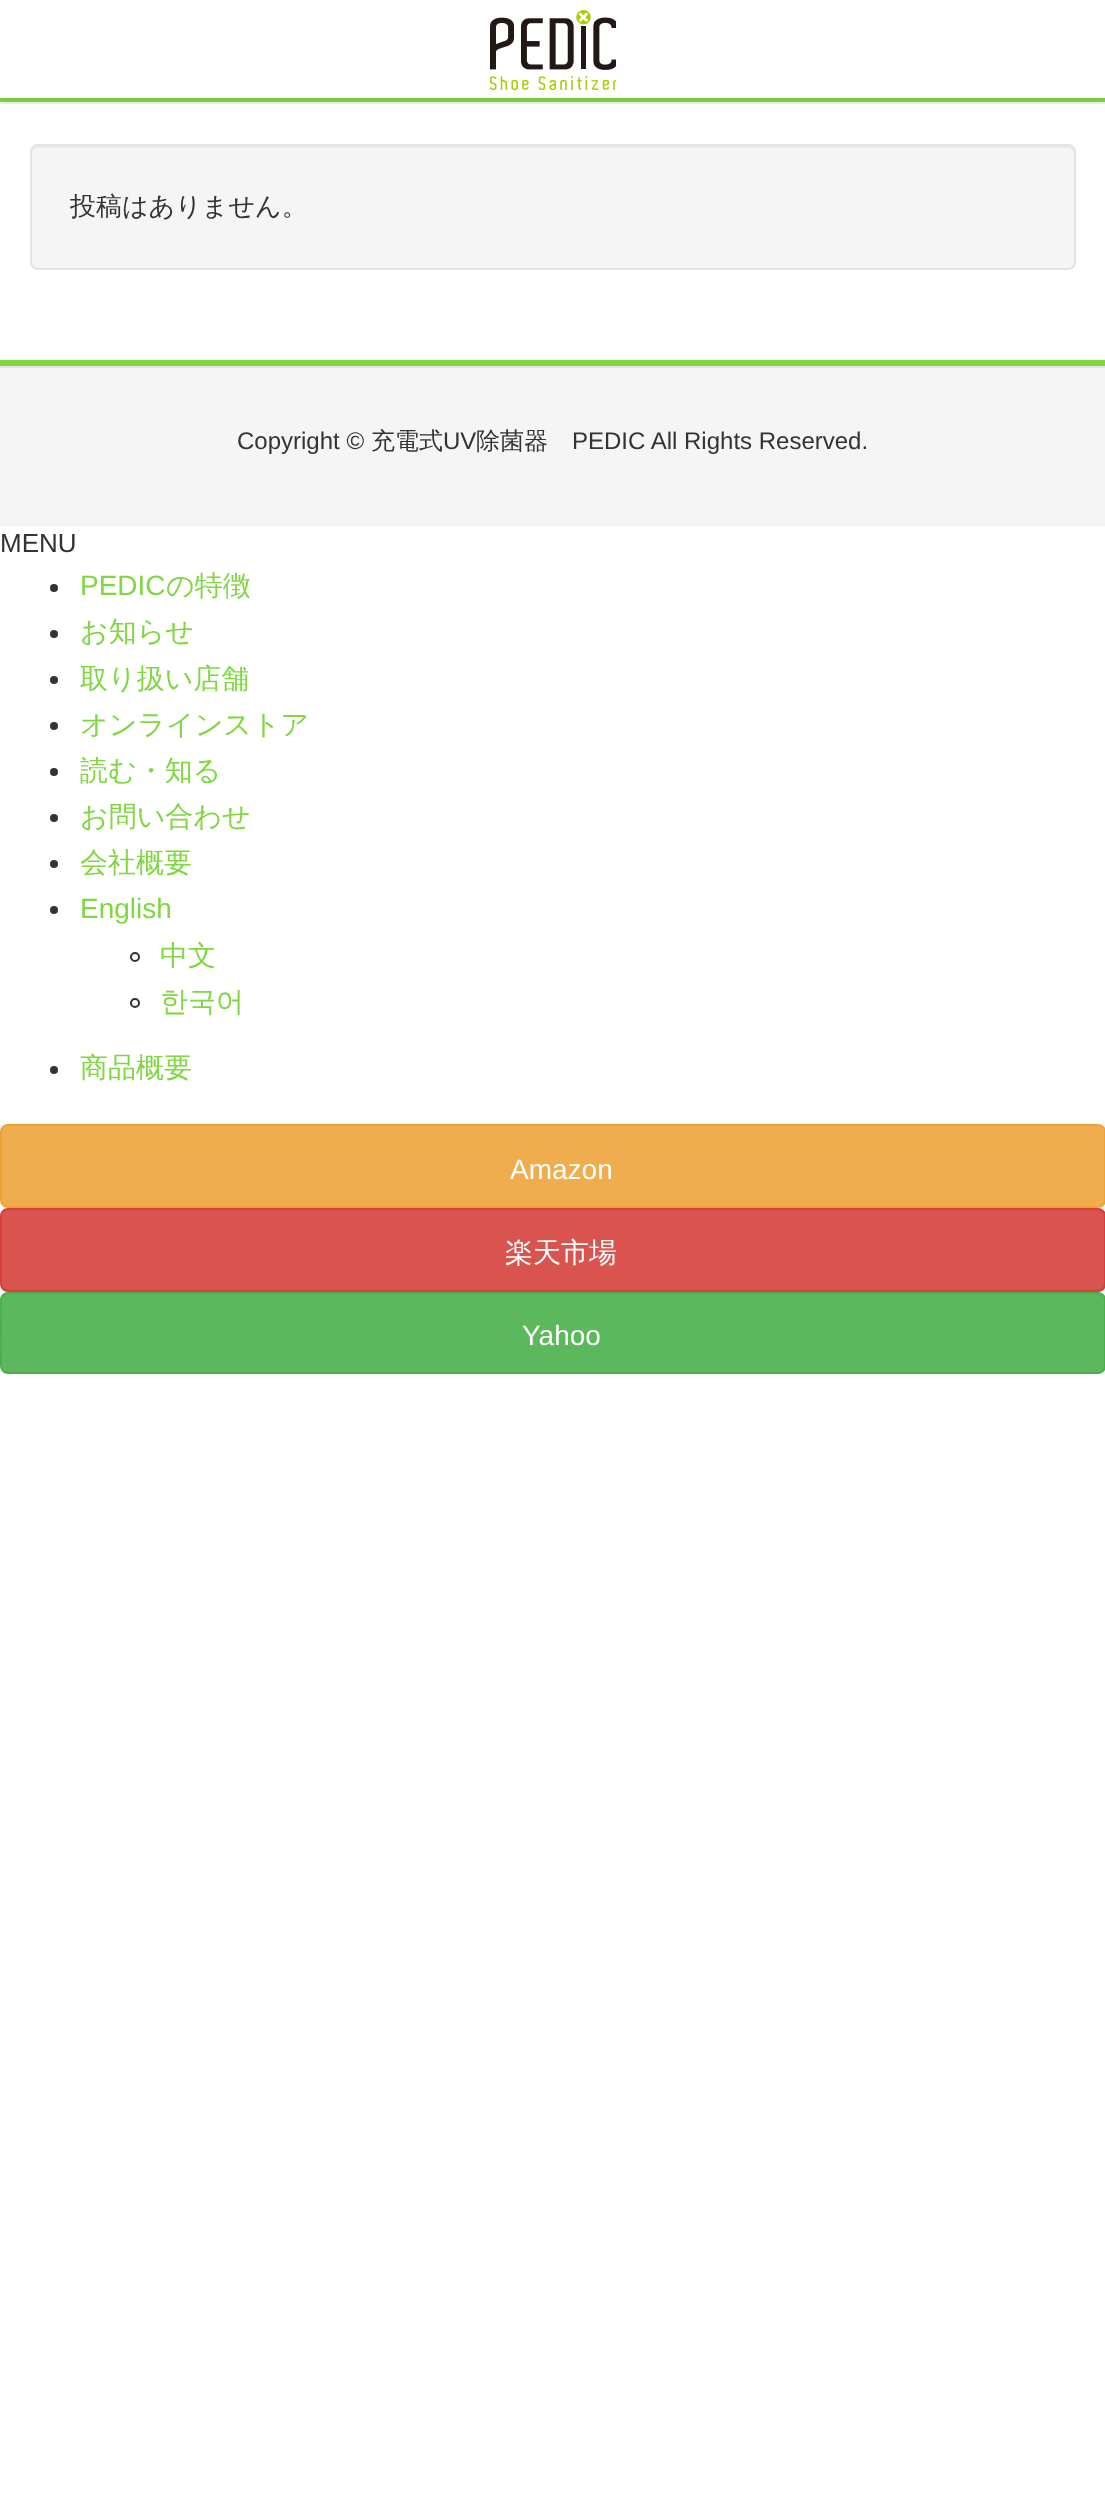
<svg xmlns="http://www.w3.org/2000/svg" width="1105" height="2507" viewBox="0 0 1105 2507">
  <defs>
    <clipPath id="clip1"><rect x="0" y="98" width="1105" height="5"/></clipPath>
  </defs>
  <rect width="100%" height="100%" fill="rgb(255,255,255)"/>
  <rect x="0" y="98" width="1105" height="4" fill="rgb(129,215,66)"/>
  <rect x="0" y="102" width="1105" height="2" fill="rgb(238,238,238)"/>
  <g clip-path="url(#clip1)">
    <rect x="0" y="2" width="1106" height="98" fill="rgba(0,0,0,0.1)" filter="blur(3px)"/>
  </g>
  <image x="490" y="10" width="126" height="80" href="pic1.png"/>
  <rect x="30" y="144" width="1046" height="126" rx="8" fill="rgb(245,245,245)"/>
  <path d="M38 148H1068C1071 148 1074 151 1074 154V152C1074 149 1071 146 1068 146H38C35 146 32 149 32 152V154C32 151 35 148 38 148Z" fill="rgb(233,233,233)"/>
  <rect x="31" y="145" width="1044" height="124" rx="7" fill="none" stroke="rgb(227,227,227)" stroke-width="2"/>
  <text x="70" y="215" font-family="WenQuanYi Zen Hei" font-size="26" font-weight="500" fill="rgb(51,51,51)">投稿はありません。</text>
  <rect x="0" y="368" width="1105" height="158" fill="rgb(245,245,245)"/>
  <rect x="0" y="360" width="1105" height="6" fill="rgb(129,215,66)"/>
  <rect x="0" y="366" width="1105" height="2" fill="rgb(229,229,229)"/>
  <text x="237" y="449" font-family="Liberation Sans" font-size="24" fill="rgb(51,51,51)">Copyright ©</text>
  <text x="371" y="449" font-family="WenQuanYi Zen Hei" font-size="24" font-weight="500" fill="rgb(51,51,51)">充電式</text>
  <text x="443" y="449" font-family="Liberation Sans" font-size="24" fill="rgb(51,51,51)">UV</text>
  <text x="476" y="449" font-family="WenQuanYi Zen Hei" font-size="24" font-weight="500" fill="rgb(51,51,51)">除菌器</text>
  <text x="572" y="449" font-family="Liberation Sans" font-size="24" fill="rgb(51,51,51)">PEDIC All Rights Reserved.</text>
  <text x="0" y="552" font-family="Liberation Sans" font-size="26" fill="rgb(51,51,51)">MENU</text>
  <circle cx="54" cy="588" r="4" fill="rgb(51,51,51)"/>
  <text x="80" y="595" font-family="Liberation Sans" font-size="28" fill="rgb(129,215,66)">PEDIC</text>
  <text x="166" y="595" font-family="WenQuanYi Zen Hei" font-size="28" font-weight="500" fill="rgb(129,215,66)">の特徴</text>
  <circle cx="54" cy="634" r="4" fill="rgb(51,51,51)"/>
  <text x="80" y="641" font-family="WenQuanYi Zen Hei" font-size="28" font-weight="500" fill="rgb(129,215,66)">お知らせ</text>
  <circle cx="54" cy="680" r="4" fill="rgb(51,51,51)"/>
  <text x="80" y="688" font-family="WenQuanYi Zen Hei" font-size="28" font-weight="500" fill="rgb(129,215,66)">取り扱い店舗</text>
  <circle cx="54" cy="726" r="4" fill="rgb(51,51,51)"/>
  <text x="80" y="734" font-family="WenQuanYi Zen Hei" font-size="28" font-weight="500" fill="rgb(129,215,66)">オンラインストア</text>
  <circle cx="54" cy="772" r="4" fill="rgb(51,51,51)"/>
  <text x="80" y="780" font-family="WenQuanYi Zen Hei" font-size="28" font-weight="500" fill="rgb(129,215,66)">読む・知る</text>
  <circle cx="54" cy="818" r="4" fill="rgb(51,51,51)"/>
  <text x="80" y="826" font-family="WenQuanYi Zen Hei" font-size="28" font-weight="500" fill="rgb(129,215,66)">お問い合わせ</text>
  <circle cx="54" cy="864" r="4" fill="rgb(51,51,51)"/>
  <text x="80" y="872" font-family="WenQuanYi Zen Hei" font-size="28" font-weight="500" fill="rgb(129,215,66)">会社概要</text>
  <circle cx="54" cy="910" r="4" fill="rgb(51,51,51)"/>
  <text x="80" y="918" font-family="Liberation Sans" font-size="28" fill="rgb(129,215,66)">English</text>
  <circle cx="135" cy="957" r="4" fill="none" stroke="rgb(51,51,51)" stroke-width="2"/>
  <text x="160" y="965" font-family="WenQuanYi Zen Hei" font-size="28" font-weight="500" fill="rgb(129,215,66)">中文</text>
  <circle cx="135" cy="1003" r="4" fill="none" stroke="rgb(51,51,51)" stroke-width="2"/>
  <text x="160" y="1011" font-family="WenQuanYi Zen Hei" font-size="28" font-weight="500" fill="rgb(129,215,66)">한국어</text>
  <circle cx="54" cy="1070" r="4" fill="rgb(51,51,51)"/>
  <text x="80" y="1077" font-family="WenQuanYi Zen Hei" font-size="28" font-weight="500" fill="rgb(129,215,66)">商品概要</text>
  <rect x="1" y="1125" width="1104" height="82" rx="7" fill="rgb(240,173,78)" stroke="rgb(238,162,54)" stroke-width="2"/>
  <text x="510" y="1179" font-family="Liberation Sans" font-size="28" fill="rgb(255,255,255)">Amazon</text>
  <rect x="1" y="1209" width="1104" height="82" rx="7" fill="rgb(217,83,79)" stroke="rgb(212,63,58)" stroke-width="2"/>
  <text x="505" y="1262" font-family="WenQuanYi Zen Hei" font-size="28" font-weight="500" fill="rgb(255,255,255)">楽天市場</text>
  <rect x="1" y="1293" width="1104" height="80" rx="7" fill="rgb(92,184,92)" stroke="rgb(76,174,76)" stroke-width="2"/>
  <text x="522" y="1345" font-family="Liberation Sans" font-size="28" fill="rgb(255,255,255)">Yahoo</text>
</svg>
